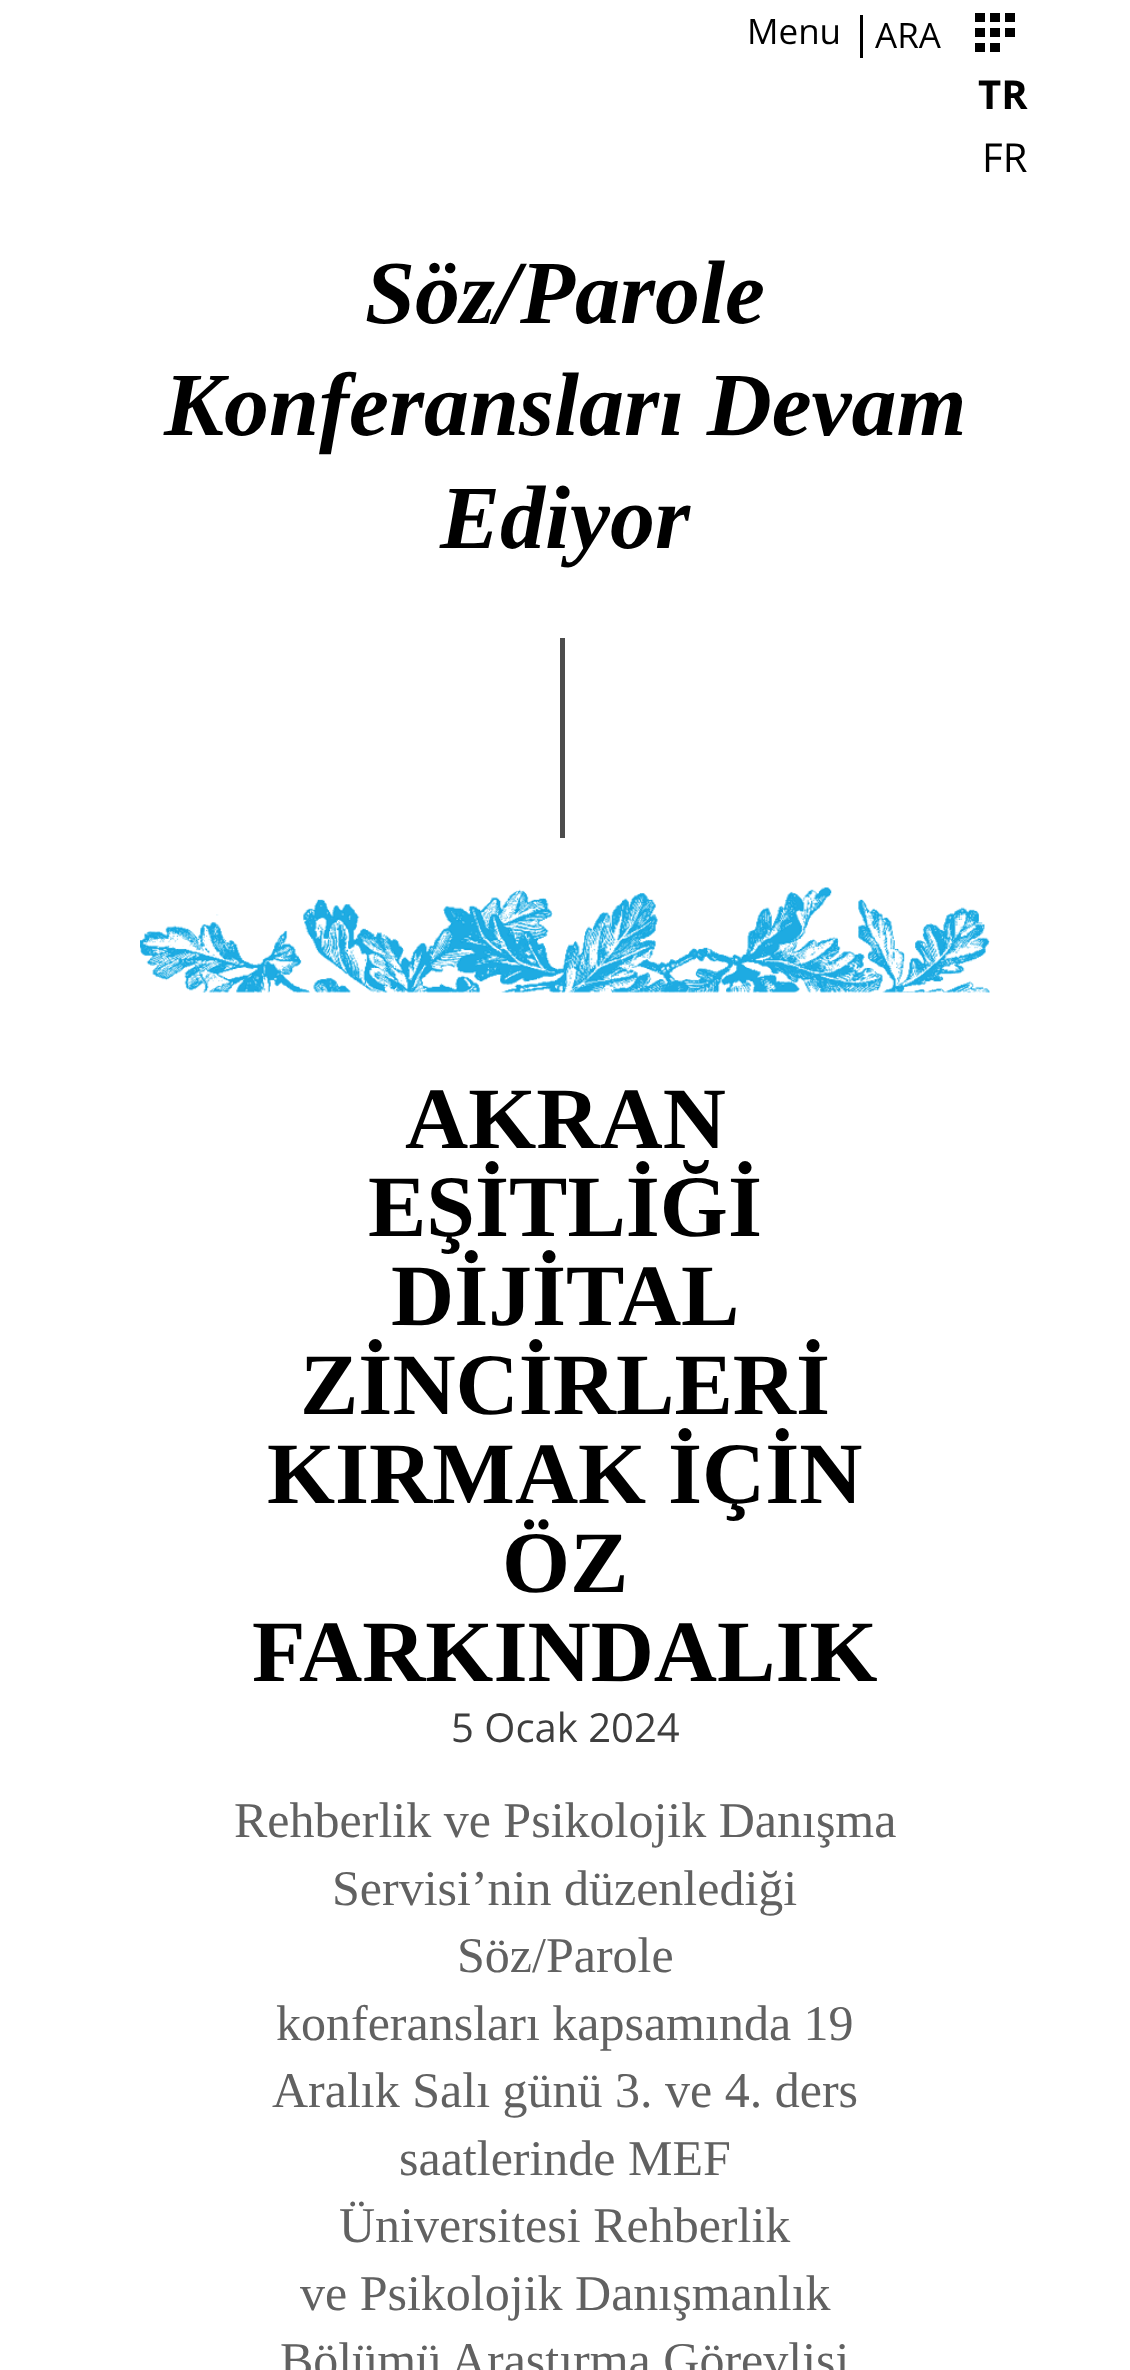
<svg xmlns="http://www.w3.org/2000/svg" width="1130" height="2370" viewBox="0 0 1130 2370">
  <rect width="100%" height="100%" fill="rgb(255,255,255)"/>
  <text x="747" y="44" font-family="Open Sans" font-size="35" fill="rgb(0,0,0)">Menu</text>
  <rect x="860" y="15" width="3" height="43" fill="rgb(0,0,0)"/>
  <text x="875" y="48" font-family="Open Sans" font-size="35" fill="rgb(0,0,0)">ARA</text>
  <rect x="975" y="13" width="10" height="9" fill="rgb(0,0,0)"/>
  <rect x="990" y="13" width="10" height="9" fill="rgb(0,0,0)"/>
  <rect x="1005" y="13" width="10" height="9" fill="rgb(0,0,0)"/>
  <rect x="975" y="28" width="10" height="9" fill="rgb(0,0,0)"/>
  <rect x="990" y="28" width="10" height="9" fill="rgb(0,0,0)"/>
  <rect x="1005" y="28" width="10" height="9" fill="rgb(0,0,0)"/>
  <rect x="975" y="43" width="10" height="9" fill="rgb(0,0,0)"/>
  <rect x="990" y="43" width="10" height="9" fill="rgb(0,0,0)"/>
  <text x="978" y="109" font-family="Open Sans" font-size="40" font-weight="bold" fill="rgb(0,0,0)">TR</text>
  <text x="982" y="172" font-family="Open Sans" font-size="40" fill="rgb(0,0,0)">FR</text>
  <g font-family="Liberation Serif" font-size="90" font-weight="bold" font-style="italic" fill="rgb(0,0,0)">
    <text x="365" y="323">Söz/Parole</text>
    <text x="164" y="435">Konferansları Devam</text>
    <text x="440" y="548">Ediyor</text>
  </g>
  <rect x="560" y="638" width="5" height="200" fill="rgb(76,76,76)"/>
  <image x="140" y="887" width="850" height="106" href="pic1.png"/>
  <g font-family="Liberation Serif" font-size="87.5" font-weight="bold" fill="rgb(0,0,0)">
    <text x="405" y="1148">AKRAN</text>
    <text x="368" y="1236">EŞİTLİĞİ</text>
    <text x="391" y="1325">DİJİTAL</text>
    <text x="300" y="1414">ZİNCİRLERİ</text>
    <text x="267" y="1503">KIRMAK İÇİN</text>
    <text x="502" y="1592">ÖZ</text>
    <text x="252" y="1681">FARKINDALIK</text>
  </g>
  <text x="451" y="1742" font-family="Open Sans" font-size="40" fill="rgb(62,62,62)">5 Ocak 2024</text>
  <g font-family="Liberation Serif" font-size="50" fill="rgb(97,97,97)">
    <text x="234" y="1837">Rehberlik ve Psikolojik Danışma</text>
    <text x="332" y="1905">Servisi’nin düzenlediği</text>
    <text x="457" y="1972">Söz/Parole</text>
    <text x="276" y="2040">konferansları kapsamında 19</text>
    <text x="272" y="2107">Aralık Salı günü 3. ve 4. ders</text>
    <text x="399" y="2175">saatlerinde MEF</text>
    <text x="339" y="2242">Üniversitesi Rehberlik</text>
    <text x="300" y="2310">ve Psikolojik Danışmanlık</text>
    <text x="280" y="2377">Bölümü Araştırma Görevlisi</text>
  </g>
</svg>
